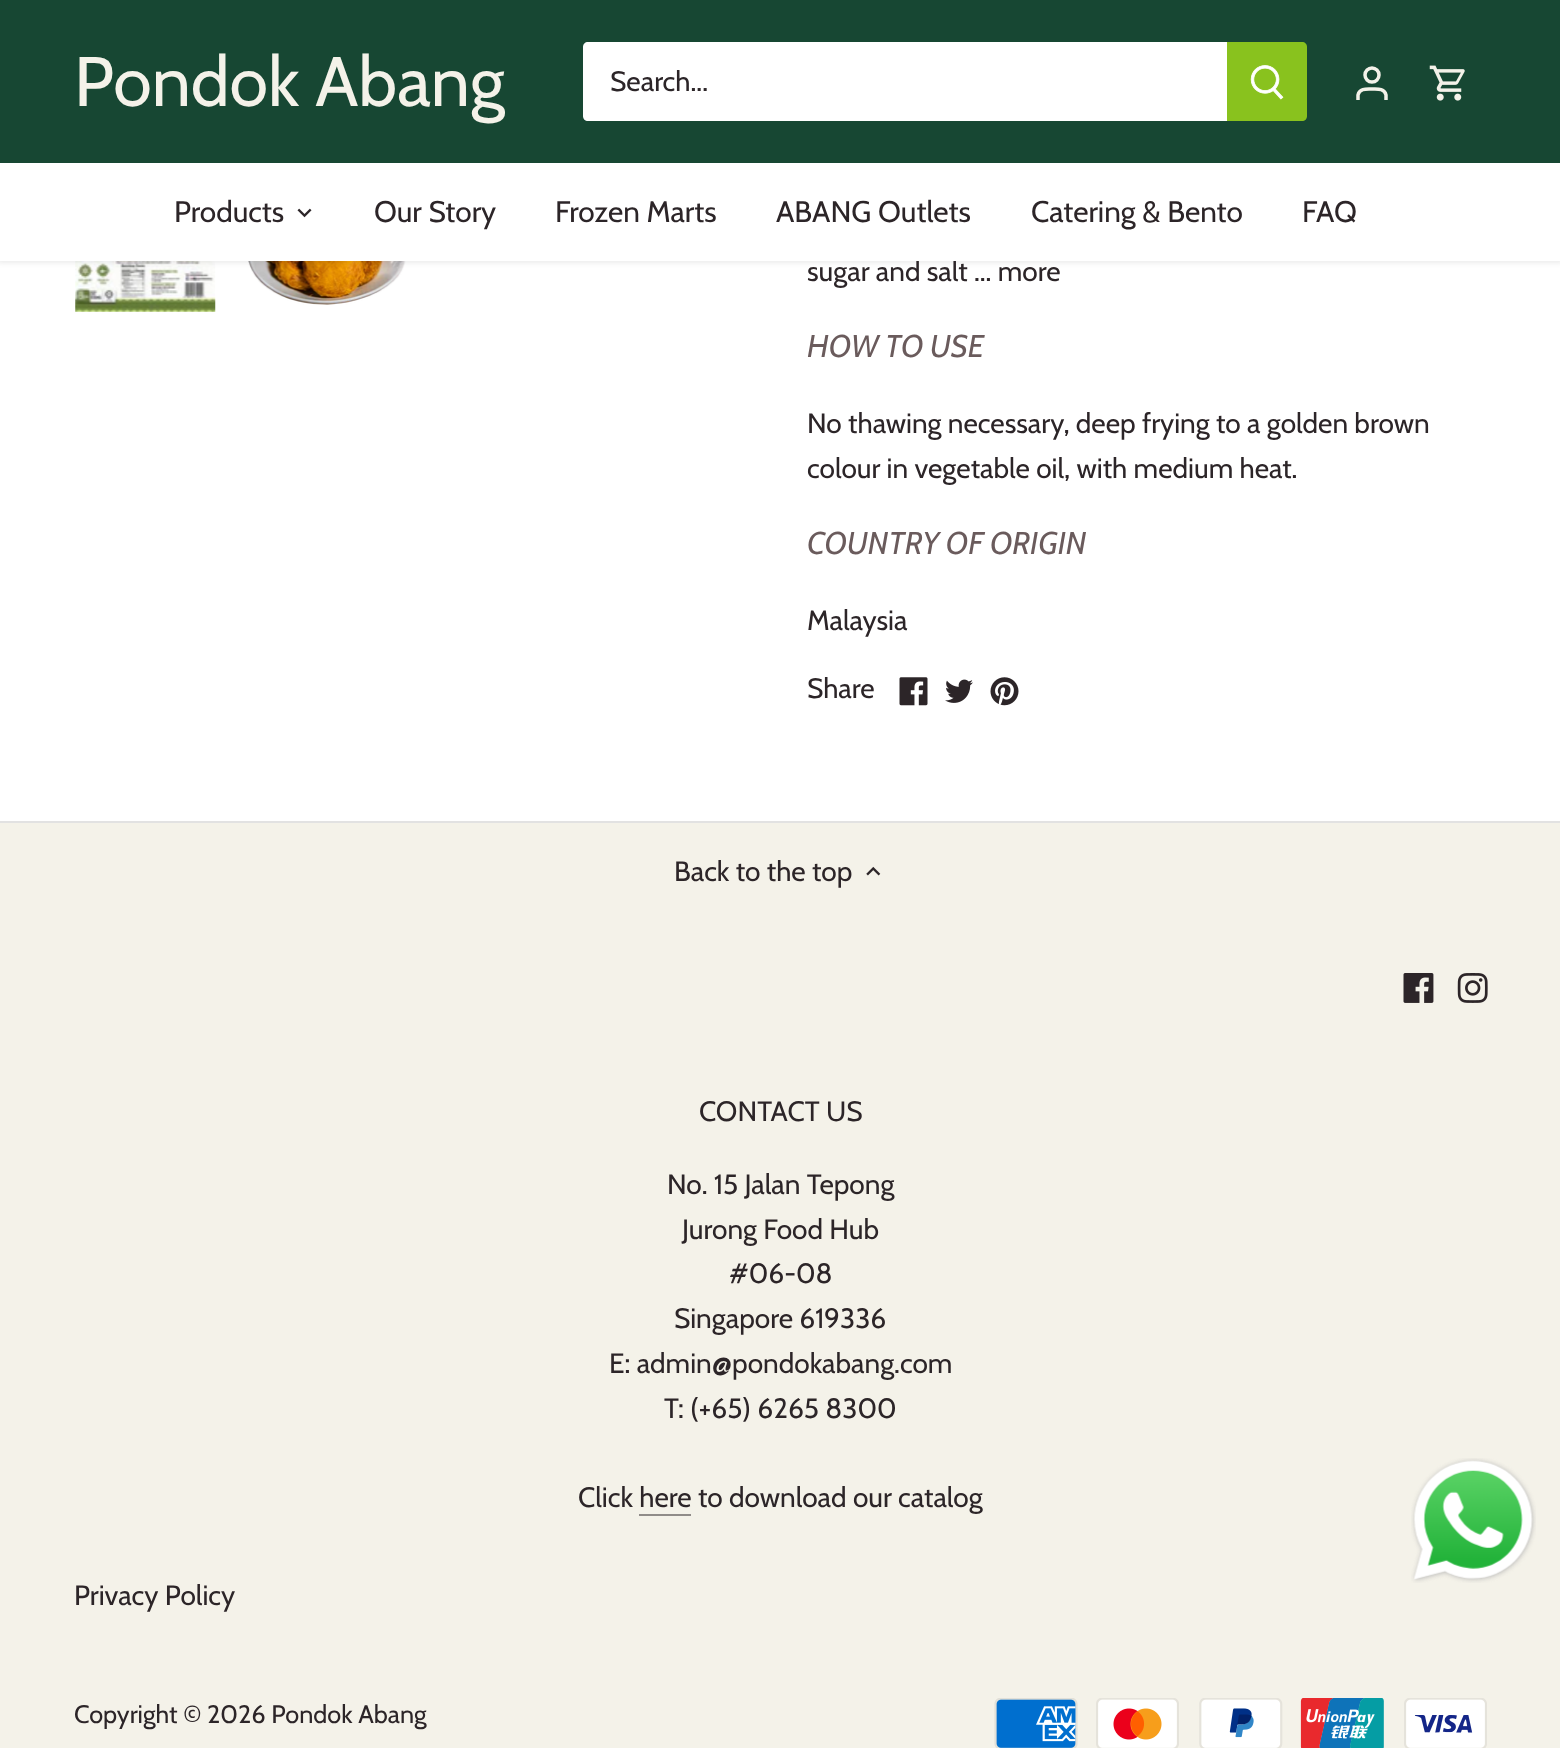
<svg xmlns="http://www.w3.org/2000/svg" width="1560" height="1748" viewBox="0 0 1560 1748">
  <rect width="100%" height="100%" fill="rgb(244,242,233)"/>
  <rect x="0" y="261" width="1560" height="560" fill="rgb(255,255,255)"/>
  <image x="75" y="261" width="141" height="51" href="pic4.png"/>
  <image x="248" y="261" width="158" height="44" href="pic5.png"/>
  <rect x="-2" y="-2" width="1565" height="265" fill="rgba(0,0,0,0.08)" filter="blur(2.5px)"/>
  <text x="807" y="281" font-family="Cabin" font-size="28" fill="rgb(44,37,40)">sugar and salt ... more</text>
  <rect x="0" y="163" width="1560" height="98" fill="rgb(255,255,255)"/>
  <rect x="0" y="0" width="1560" height="163" fill="rgb(23,71,51)"/>
  <text x="74" y="106" font-family="Cabin" font-size="70" fill="rgb(244,242,233)">Pondok Abang</text>
  <path d="M588 42H1229V121H588C585 121 583 119 583 116V47C583 44 585 42 588 42Z" fill="rgb(255,255,255)"/>
  <text x="610" y="91" font-family="Cabin" font-size="28" fill="rgb(44,37,40)">Search...</text>
  <path d="M1227 42H1302C1305 42 1307 44 1307 47V116C1307 119 1305 121 1302 121H1227Z" fill="rgb(137,194,30)"/>
  <image x="1250" y="65" width="34" height="35" href="pic1.png"/>
  <circle cx="1372" cy="75" r="7" fill="none" stroke="rgb(244,242,233)" stroke-width="3.5"/>
  <path d="M1386 100V95C1384.5 88 1377 89 1372 89C1367 89 1359.5 88 1358 95V100" fill="none" stroke="rgb(244,242,233)" stroke-width="3.5"/>
  <image x="1429" y="65" width="36" height="36" href="pic2.png"/>
  <text x="174" y="222" font-family="Cabin" font-size="29.75" fill="rgb(44,37,40)">Products</text>
  <image x="297" y="208" width="15" height="10" href="pic3.png"/>
  <g font-family="Cabin" font-size="29.75" fill="rgb(44,37,40)">
    <text x="374" y="222">Our Story</text>
    <text x="555" y="222">Frozen Marts</text>
    <text x="776" y="222">ABANG Outlets</text>
    <text x="1031" y="222">Catering &amp; Bento</text>
    <text x="1302" y="222">FAQ</text>
  </g>
  <text x="807" y="357" font-family="Cabin" font-size="31.5" font-style="italic" fill="rgb(106,91,92)">HOW TO USE</text>
  <g font-family="Cabin" font-size="28" fill="rgb(44,37,40)">
    <text>
      <tspan x="807" y="433">No thawing necessary, deep frying to a golden brown</tspan>
      <tspan x="807" y="478">colour in vegetable oil, with medium heat.</tspan>
    </text>
  </g>
  <text x="807" y="554" font-family="Cabin" font-size="31.5" font-style="italic" fill="rgb(106,91,92)">COUNTRY OF ORIGIN</text>
  <g font-family="Cabin" font-size="28" fill="rgb(44,37,40)">
    <text x="807" y="630">Malaysia</text>
    <text x="807" y="698">Share</text>
  </g>
  <image x="899" y="677" width="29" height="29" href="pic6.png"/>
  <image x="945" y="679" width="28" height="24" href="pic7.png"/>
  <image x="990" y="677" width="29" height="29" href="pic8.png"/>
  <rect x="0" y="821" width="1560" height="2" fill="rgb(226,226,226)"/>
  <text x="674" y="881" font-family="Cabin" font-size="28" fill="rgb(44,37,40)">Back to the top</text>
  <image x="866" y="866" width="15" height="10" href="pic9.png"/>
  <image x="1403" y="973" width="31" height="30" href="pic10.png"/>
  <image x="1457" y="973" width="31" height="30" href="pic11.png"/>
  <g font-family="Cabin" font-size="28" fill="rgb(44,37,40)">
    <text x="699" y="1121">CONTACT US</text>
    <text x="667" y="1194">No. 15 Jalan Tepong</text>
    <text x="682" y="1239">Jurong Food Hub</text>
    <text x="729" y="1283">#06-08</text>
    <text x="674" y="1328">Singapore 619336</text>
    <text x="609" y="1373">E: admin@pondokabang.com</text>
    <text x="664" y="1418">T: (+65) 6265 8300</text>
    <text x="578" y="1507">Click here to download our catalog</text>
  </g>
  <rect x="639" y="1514" width="52" height="2" fill="rgb(144,140,137)"/>
  <text x="74" y="1605" font-family="Cabin" font-size="28" fill="rgb(44,37,40)">Privacy Policy</text>
  <text x="74" y="1723" font-family="Cabin" font-size="25.25" fill="rgb(44,37,40)">Copyright © 2026 Pondok Abang</text>
  <image x="994" y="1698" width="84" height="50" href="pic12.png"/>
  <image x="1096" y="1698" width="83" height="50" href="pic13.png"/>
  <image x="1199" y="1698" width="84" height="50" href="pic14.png"/>
  <image x="1300" y="1698" width="84" height="50" href="pic15.png"/>
  <image x="1404" y="1698" width="83" height="50" href="pic16.png"/>
  <image x="1411" y="1458" width="125" height="125" href="pic17.png"/>
</svg>
